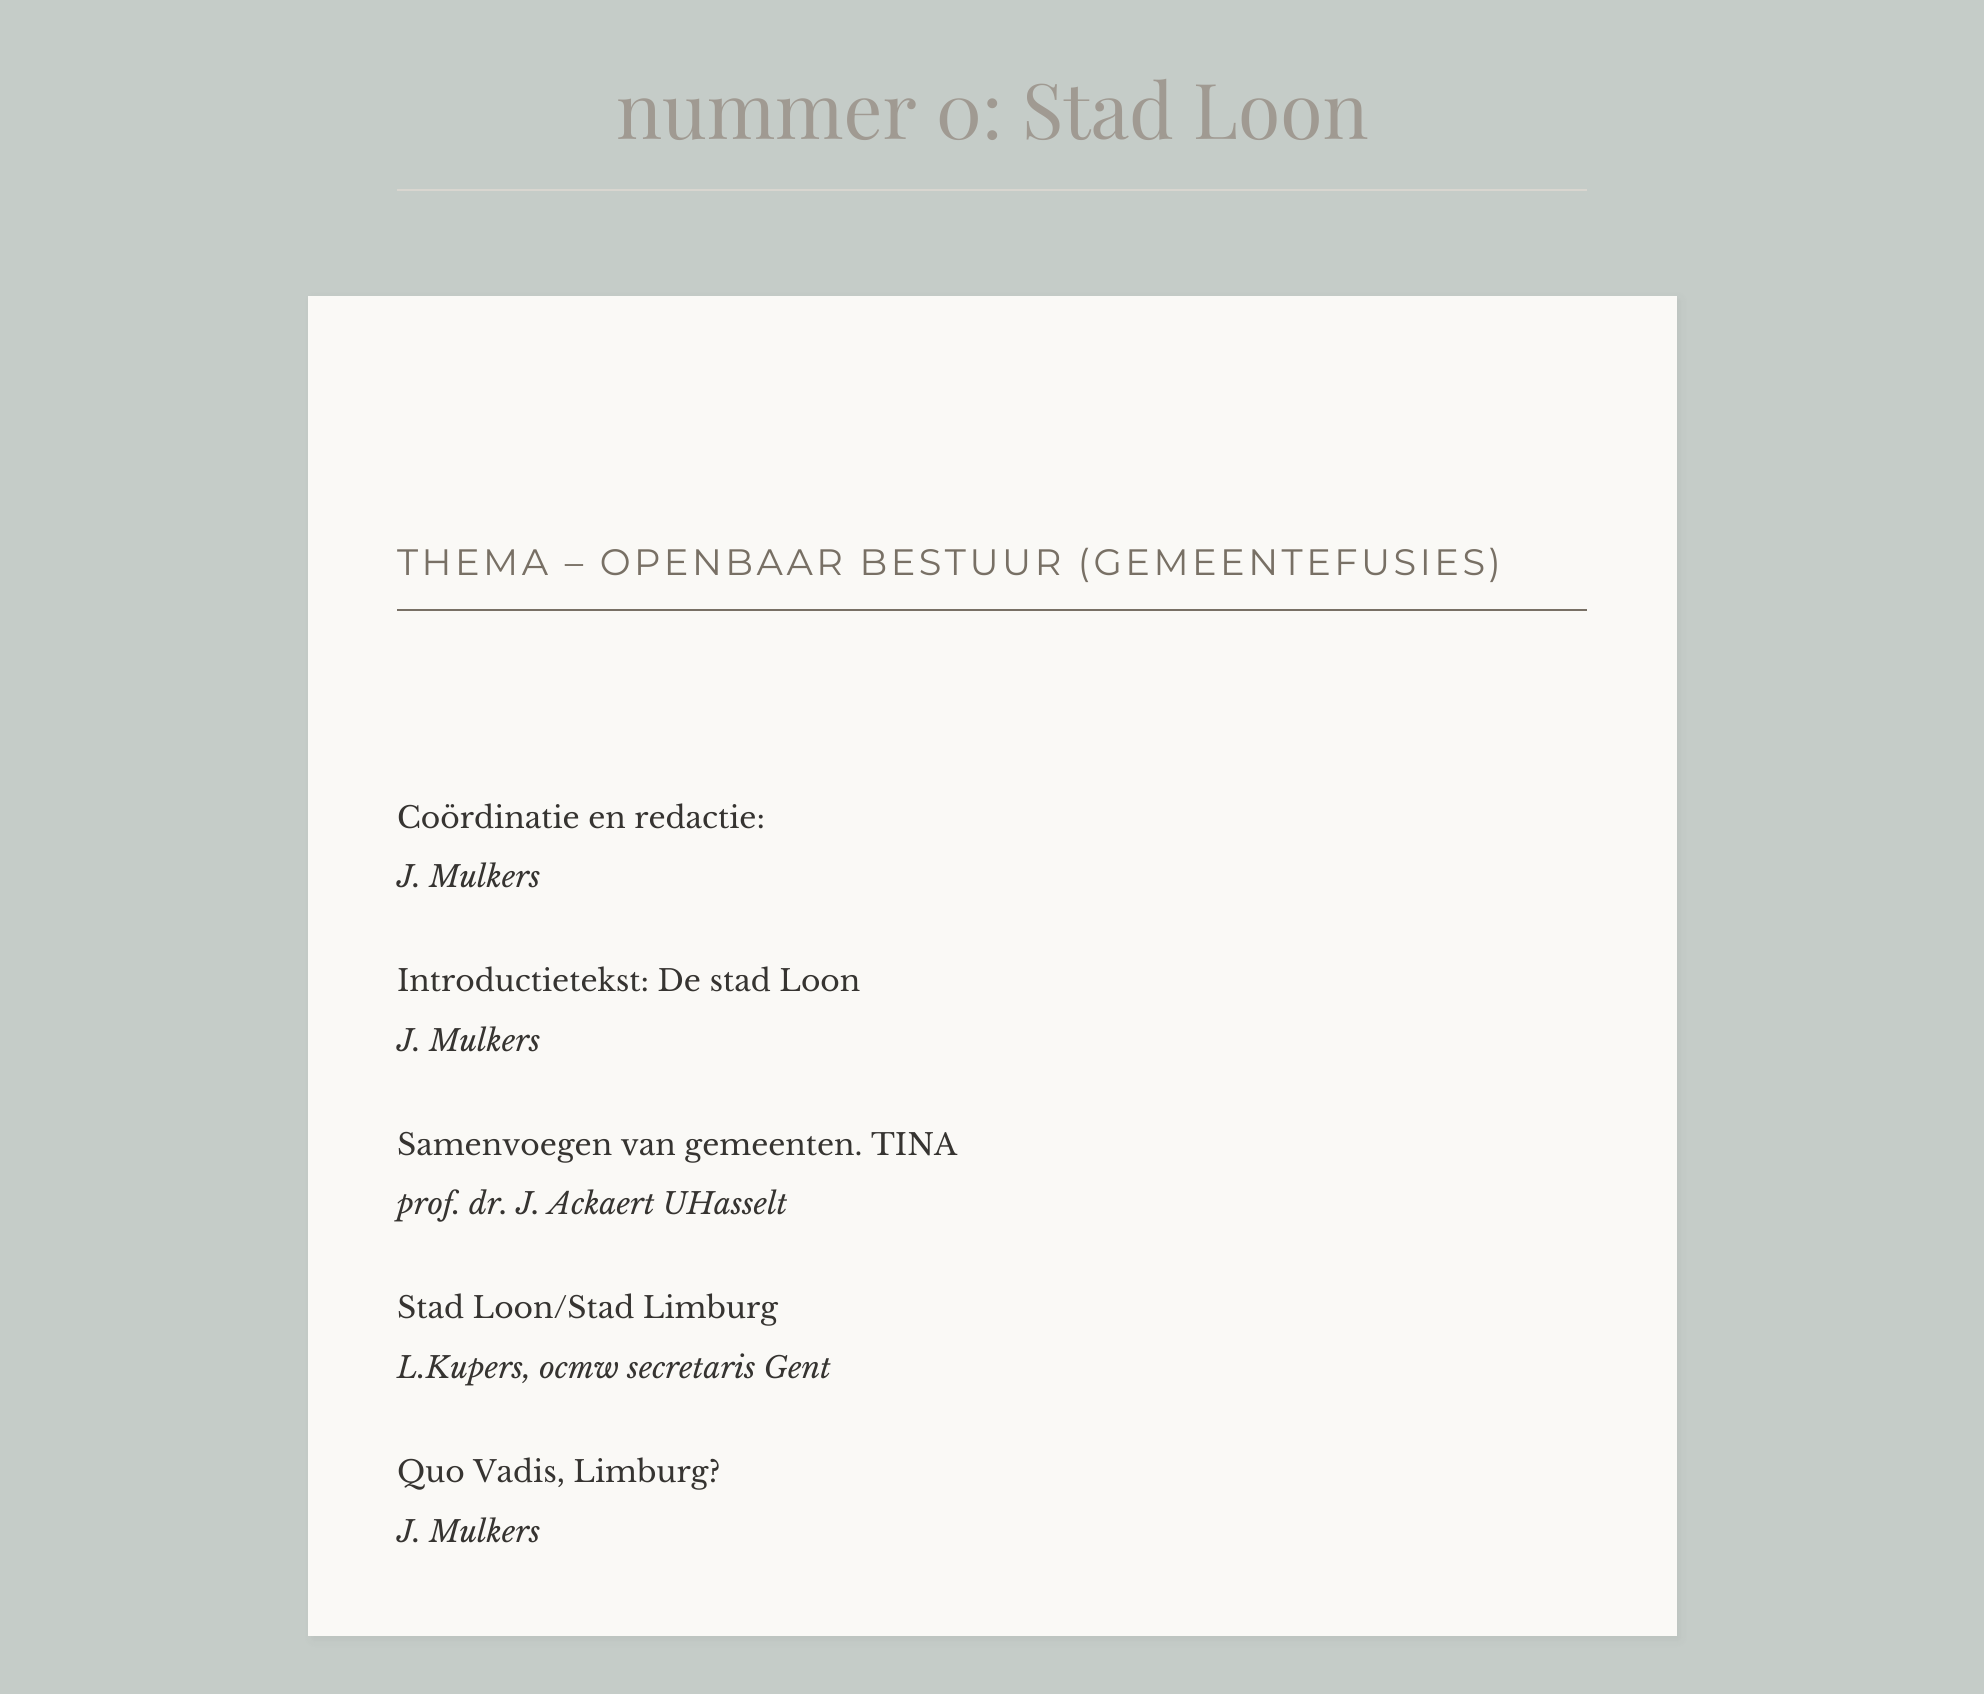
#include <cairo.h>
#include <math.h>
#include <stddef.h>


static void spaced_text(cairo_t *cr, double x, double y, const char *s, double letter, double word) {
    cairo_move_to(cr, x, y);
    while (*s) {
        char ch[5] = {0};
        int n = 0;
        do ch[n++] = *s++; while ((*s & 0xC0) == 0x80);
        cairo_show_text(cr, ch);
        cairo_rel_move_to(cr, letter + word * (*ch == ' '), 0);
    }
}

static void round_rect(cairo_t *cr, double x, double y, double w, double h, double r) {
    cairo_new_sub_path(cr);
    cairo_arc(cr, x + w - r, y + h - r, r, 0, M_PI / 2);
    cairo_arc(cr, x + r, y + h - r, r, M_PI / 2, M_PI);
    cairo_arc(cr, x + r, y + r, r, M_PI, 1.5 * M_PI);
    cairo_arc(cr, x + w - r, y + r, r, 1.5 * M_PI, 2 * M_PI);
    cairo_close_path(cr);
}

static void shadow(cairo_t *cr, double x, double y, double w, double h, double r, double blur, double alpha) {
    cairo_push_group_with_content(cr, CAIRO_CONTENT_ALPHA);
    cairo_set_operator(cr, CAIRO_OPERATOR_SOURCE);
    for (int i = 15; i >= -15 && fmin(w, h) + blur * i / 3 > 0; i -= 2) {
        double e = blur * i / 6;
        cairo_set_source_rgba(cr, 0, 0, 0, alpha * erfc((i - 1) / 8.5) / 2);
        round_rect(cr, x - e, y - e, w + 2 * e, h + 2 * e, fmax(0, fmin(r + e + blur * .6, fmin(w, h) / 2 + e)));
        cairo_fill(cr);
    }
    cairo_pattern_t *soft = cairo_pop_group(cr);
    cairo_mask(cr, soft);
    cairo_pattern_destroy(soft);
}

int main(void) {
    cairo_surface_t *surface = cairo_image_surface_create(CAIRO_FORMAT_RGB24, 1984, 1694);
    cairo_t *cr = cairo_create(surface);
    cairo_font_options_t *options = cairo_font_options_create();
    cairo_font_options_set_hint_metrics(options, CAIRO_HINT_METRICS_OFF);
    cairo_font_options_set_hint_style(options, CAIRO_HINT_STYLE_NONE);
    cairo_set_font_options(cr, options);
    cairo_set_miter_limit(cr, 4);
    cairo_set_source_rgb(cr, 0.773, 0.8, 0.784);
    cairo_paint(cr);
    cairo_set_source_rgb(cr, 0.851, 0.839, 0.816);
    cairo_rectangle(cr, 397, 189, 1190, 2);
    cairo_fill(cr);
    cairo_select_font_face(cr, "Playfair Display", CAIRO_FONT_SLANT_NORMAL, CAIRO_FONT_WEIGHT_NORMAL);
    cairo_set_font_size(cr, 77);
    cairo_set_source_rgb(cr, 0.627, 0.604, 0.573);
    cairo_move_to(cr, 616, 139);
    cairo_show_text(cr, "nummer 0: Stad Loon");
    cairo_set_source_rgb(cr, 0, 0, 0);
    shadow(cr, 312, 299, 1368, 1341, 0, 5, 0.05);
    cairo_set_source_rgb(cr, 0.98, 0.976, 0.961);
    cairo_rectangle(cr, 308, 296, 1369, 1340);
    cairo_fill(cr);
    cairo_set_source_rgb(cr, 0.471, 0.439, 0.396);
    cairo_rectangle(cr, 397, 609, 1190, 2);
    cairo_fill(cr);
    cairo_select_font_face(cr, "Montserrat Thin", CAIRO_FONT_SLANT_NORMAL, CAIRO_FONT_WEIGHT_NORMAL);
    cairo_set_font_size(cr, 36.75);
    spaced_text(cr, 397, 575, "THEMA – OPENBAAR BESTUUR (GEMEENTEFUSIES)", 3.5, 0);
    cairo_select_font_face(cr, "Libre Baskerville", CAIRO_FONT_SLANT_NORMAL, CAIRO_FONT_WEIGHT_NORMAL);
    cairo_set_font_size(cr, 29.75);
    cairo_set_source_rgb(cr, 0.212, 0.204, 0.192);
    cairo_move_to(cr, 397, 828);
    cairo_show_text(cr, "Coördinatie en redactie:");
    cairo_select_font_face(cr, "Libre Baskerville", CAIRO_FONT_SLANT_ITALIC, CAIRO_FONT_WEIGHT_NORMAL);
    cairo_move_to(cr, 397, 887);
    cairo_show_text(cr, "J. Mulkers");
    cairo_select_font_face(cr, "Libre Baskerville", CAIRO_FONT_SLANT_NORMAL, CAIRO_FONT_WEIGHT_NORMAL);
    cairo_move_to(cr, 397, 991);
    cairo_show_text(cr, "Introductietekst: De stad Loon");
    cairo_select_font_face(cr, "Libre Baskerville", CAIRO_FONT_SLANT_ITALIC, CAIRO_FONT_WEIGHT_NORMAL);
    cairo_move_to(cr, 397, 1051);
    cairo_show_text(cr, "J. Mulkers");
    cairo_select_font_face(cr, "Libre Baskerville", CAIRO_FONT_SLANT_NORMAL, CAIRO_FONT_WEIGHT_NORMAL);
    cairo_move_to(cr, 397, 1155);
    cairo_show_text(cr, "Samenvoegen van gemeenten. TINA");
    cairo_select_font_face(cr, "Libre Baskerville", CAIRO_FONT_SLANT_ITALIC, CAIRO_FONT_WEIGHT_NORMAL);
    cairo_move_to(cr, 397, 1214);
    cairo_show_text(cr, "prof. dr. J. Ackaert UHasselt");
    cairo_select_font_face(cr, "Libre Baskerville", CAIRO_FONT_SLANT_NORMAL, CAIRO_FONT_WEIGHT_NORMAL);
    cairo_move_to(cr, 397, 1318);
    cairo_show_text(cr, "Stad Loon/Stad Limburg");
    cairo_select_font_face(cr, "Libre Baskerville", CAIRO_FONT_SLANT_ITALIC, CAIRO_FONT_WEIGHT_NORMAL);
    cairo_move_to(cr, 397, 1378);
    cairo_show_text(cr, "L.Kupers, ocmw secretaris Gent");
    cairo_select_font_face(cr, "Libre Baskerville", CAIRO_FONT_SLANT_NORMAL, CAIRO_FONT_WEIGHT_NORMAL);
    cairo_move_to(cr, 397, 1482);
    cairo_show_text(cr, "Quo Vadis, Limburg?");
    cairo_select_font_face(cr, "Libre Baskerville", CAIRO_FONT_SLANT_ITALIC, CAIRO_FONT_WEIGHT_NORMAL);
    cairo_move_to(cr, 397, 1542);
    cairo_show_text(cr, "J. Mulkers");
    cairo_surface_write_to_png(surface, "page.png");
    cairo_font_options_destroy(options);
    cairo_destroy(cr);
    cairo_surface_destroy(surface);
    return 0;
}
